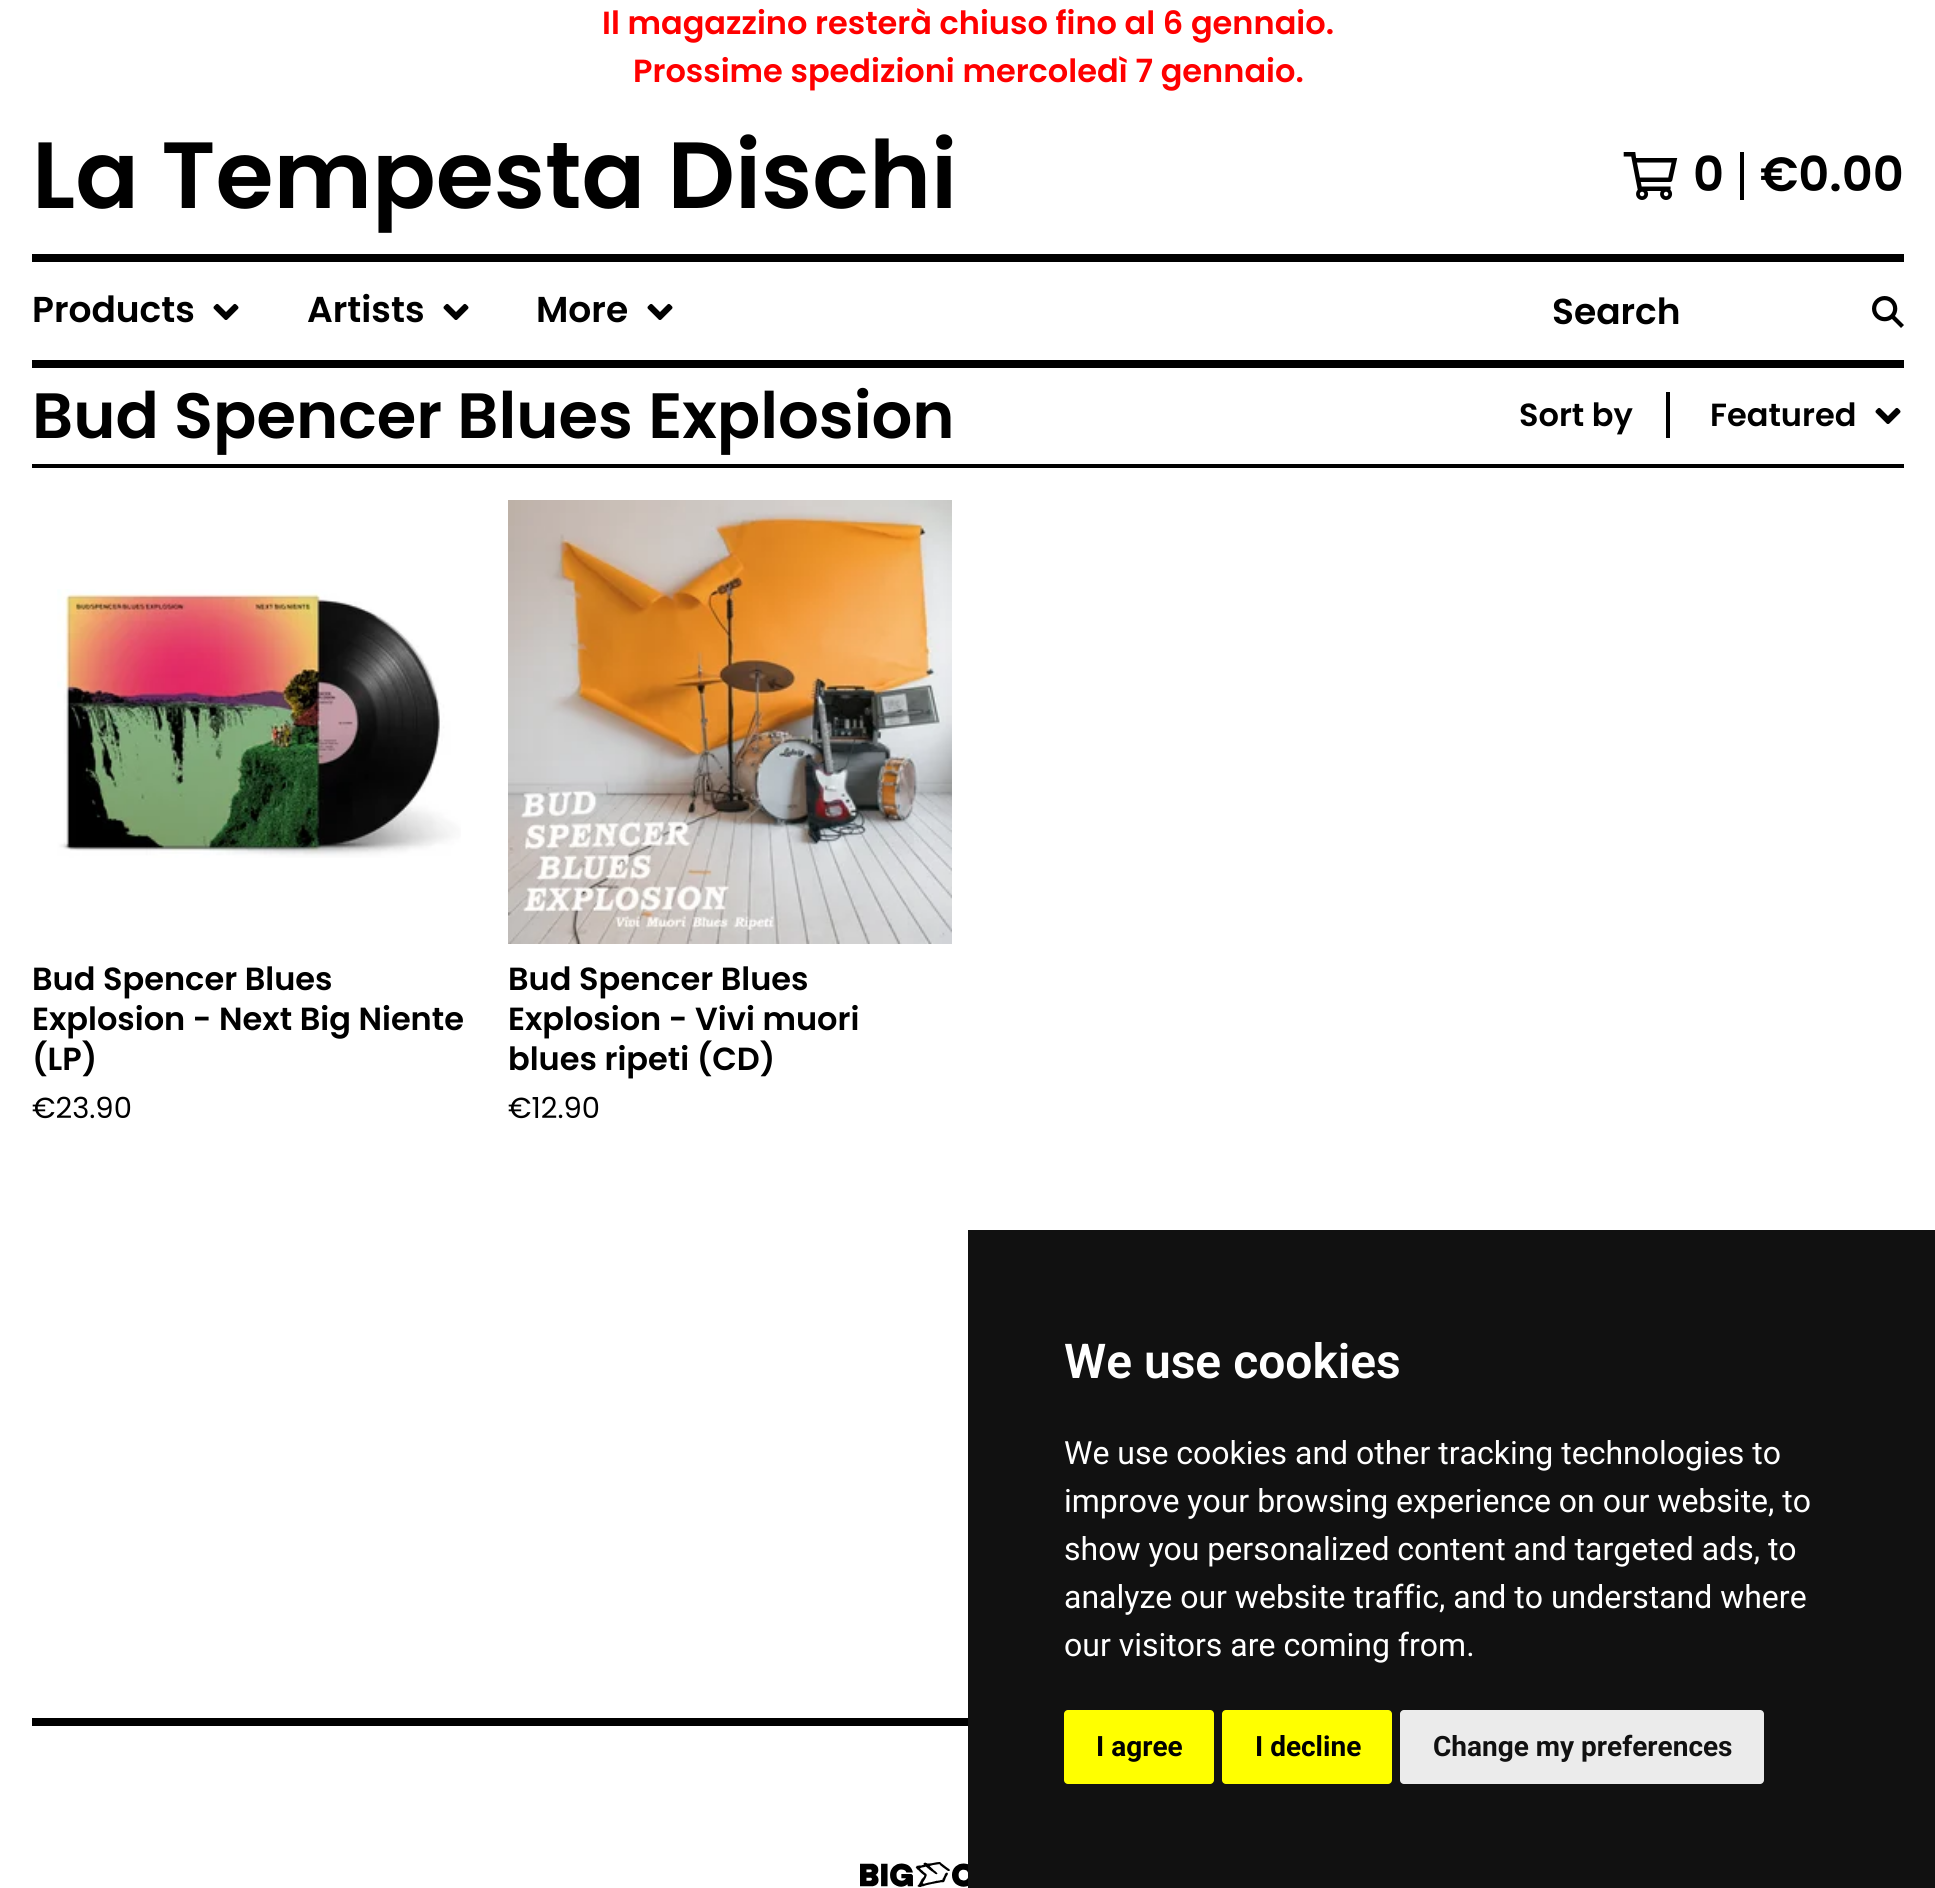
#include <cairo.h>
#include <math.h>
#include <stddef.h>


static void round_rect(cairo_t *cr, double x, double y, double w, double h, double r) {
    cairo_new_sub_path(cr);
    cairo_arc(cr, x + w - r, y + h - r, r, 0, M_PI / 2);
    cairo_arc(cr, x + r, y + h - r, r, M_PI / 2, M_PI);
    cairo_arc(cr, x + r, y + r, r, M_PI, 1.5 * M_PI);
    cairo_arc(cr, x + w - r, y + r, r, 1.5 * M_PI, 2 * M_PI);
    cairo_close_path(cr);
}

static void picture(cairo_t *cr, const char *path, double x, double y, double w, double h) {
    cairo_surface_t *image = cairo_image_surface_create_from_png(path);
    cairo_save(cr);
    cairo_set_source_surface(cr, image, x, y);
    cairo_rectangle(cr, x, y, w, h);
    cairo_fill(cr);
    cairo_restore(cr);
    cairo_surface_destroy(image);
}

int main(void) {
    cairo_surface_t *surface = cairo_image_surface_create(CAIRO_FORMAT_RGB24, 1935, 1888);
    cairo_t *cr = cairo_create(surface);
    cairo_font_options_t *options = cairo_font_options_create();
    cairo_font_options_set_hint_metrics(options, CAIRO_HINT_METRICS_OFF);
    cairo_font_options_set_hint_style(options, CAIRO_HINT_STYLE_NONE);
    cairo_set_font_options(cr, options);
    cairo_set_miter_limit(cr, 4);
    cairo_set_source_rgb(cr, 1, 1, 1);
    cairo_paint(cr);
    cairo_select_font_face(cr, "Poppins SemiBold", CAIRO_FONT_SLANT_NORMAL, CAIRO_FONT_WEIGHT_NORMAL);
    cairo_set_font_size(cr, 32);
    cairo_set_source_rgb(cr, 1, 0, 0);
    cairo_move_to(cr, 602, 34);
    cairo_show_text(cr, "Il magazzino resterà chiuso fino al 6 gennaio.");
    cairo_move_to(cr, 633, 82);
    cairo_show_text(cr, "Prossime spedizioni mercoledì 7 gennaio.");
    cairo_set_source_rgb(cr, 0, 0, 0);
    cairo_rectangle(cr, 32, 254, 1872, 8);
    cairo_fill(cr);
    cairo_set_font_size(cr, 94);
    cairo_move_to(cr, 32, 208);
    cairo_show_text(cr, "La Tempesta Dischi");
    picture(cr, "img1.png", 1623, 152, 55, 48);
    cairo_rectangle(cr, 1740, 152, 4, 48);
    cairo_fill(cr);
    cairo_set_font_size(cr, 48);
    cairo_move_to(cr, 1693, 191);
    cairo_show_text(cr, "0");
    cairo_move_to(cr, 1760, 191);
    cairo_show_text(cr, "€0.00");
    cairo_rectangle(cr, 32, 360, 1872, 8);
    cairo_fill(cr);
    cairo_set_font_size(cr, 36);
    cairo_move_to(cr, 32, 322);
    cairo_show_text(cr, "Products");
    picture(cr, "img2.png", 213, 303, 26, 17);
    cairo_move_to(cr, 307, 322);
    cairo_show_text(cr, "Artists");
    picture(cr, "img2.png", 443, 303, 26, 17);
    cairo_move_to(cr, 536, 322);
    cairo_show_text(cr, "More");
    picture(cr, "img2.png", 647, 303, 26, 17);
    cairo_move_to(cr, 1552, 324);
    cairo_show_text(cr, "Search");
    picture(cr, "img3.png", 1872, 296, 32, 32);
    cairo_rectangle(cr, 32, 464, 1872, 4);
    cairo_fill(cr);
    cairo_set_font_size(cr, 64);
    cairo_move_to(cr, 32, 438);
    cairo_show_text(cr, "Bud Spencer Blues Explosion");
    cairo_set_font_size(cr, 32);
    cairo_move_to(cr, 1519, 426);
    cairo_show_text(cr, "Sort by");
    cairo_rectangle(cr, 1666, 392, 4, 46);
    cairo_fill(cr);
    cairo_move_to(cr, 1710, 426);
    cairo_show_text(cr, "Featured");
    picture(cr, "img2.png", 1875, 407, 26, 17);
    picture(cr, "img4.png", 57, 589, 404, 269);
    cairo_move_to(cr, 32, 990);
    cairo_show_text(cr, "Bud Spencer Blues");
    cairo_move_to(cr, 32, 1030);
    cairo_show_text(cr, "Explosion - Next Big Niente");
    cairo_move_to(cr, 32, 1070);
    cairo_show_text(cr, "(LP)");
    cairo_select_font_face(cr, "Poppins", CAIRO_FONT_SLANT_NORMAL, CAIRO_FONT_WEIGHT_NORMAL);
    cairo_set_font_size(cr, 29);
    cairo_move_to(cr, 32, 1118);
    cairo_show_text(cr, "€23.90");
    picture(cr, "img5.png", 508, 500, 444, 444);
    cairo_select_font_face(cr, "Poppins SemiBold", CAIRO_FONT_SLANT_NORMAL, CAIRO_FONT_WEIGHT_NORMAL);
    cairo_set_font_size(cr, 32);
    cairo_move_to(cr, 508, 990);
    cairo_show_text(cr, "Bud Spencer Blues");
    cairo_move_to(cr, 508, 1030);
    cairo_show_text(cr, "Explosion - Vivi muori");
    cairo_move_to(cr, 508, 1070);
    cairo_show_text(cr, "blues ripeti (CD)");
    cairo_select_font_face(cr, "Poppins", CAIRO_FONT_SLANT_NORMAL, CAIRO_FONT_WEIGHT_NORMAL);
    cairo_set_font_size(cr, 29);
    cairo_move_to(cr, 508, 1118);
    cairo_show_text(cr, "€12.90");
    cairo_rectangle(cr, 32, 1718, 936, 8);
    cairo_fill(cr);
    picture(cr, "img6.png", 860, 1862, 108, 25);
    cairo_set_source_rgb(cr, 0.067, 0.067, 0.067);
    cairo_rectangle(cr, 968, 1230, 967, 658);
    cairo_fill(cr);
    cairo_select_font_face(cr, "Roboto SemiBold", CAIRO_FONT_SLANT_NORMAL, CAIRO_FONT_WEIGHT_NORMAL);
    cairo_set_font_size(cr, 48);
    cairo_set_source_rgb(cr, 1, 1, 1);
    cairo_move_to(cr, 1064, 1378);
    cairo_show_text(cr, "We use cookies");
    cairo_select_font_face(cr, "Roboto", CAIRO_FONT_SLANT_NORMAL, CAIRO_FONT_WEIGHT_NORMAL);
    cairo_set_font_size(cr, 32);
    cairo_move_to(cr, 1064, 1464);
    cairo_show_text(cr, "We use cookies and other tracking technologies to");
    cairo_move_to(cr, 1064, 1512);
    cairo_show_text(cr, "improve your browsing experience on our website, to");
    cairo_move_to(cr, 1064, 1560);
    cairo_show_text(cr, "show you personalized content and targeted ads, to");
    cairo_move_to(cr, 1064, 1608);
    cairo_show_text(cr, "analyze our website traffic, and to understand where");
    cairo_move_to(cr, 1064, 1656);
    cairo_show_text(cr, "our visitors are coming from.");
    cairo_set_source_rgb(cr, 1, 1, 0);
    round_rect(cr, 1064, 1710, 150, 74, 4);
    cairo_fill(cr);
    cairo_select_font_face(cr, "Roboto", CAIRO_FONT_SLANT_NORMAL, CAIRO_FONT_WEIGHT_BOLD);
    cairo_set_font_size(cr, 28);
    cairo_set_source_rgb(cr, 0, 0, 0);
    cairo_move_to(cr, 1096, 1756);
    cairo_show_text(cr, "I agree");
    cairo_set_source_rgb(cr, 1, 1, 0);
    round_rect(cr, 1222, 1710, 170, 74, 4);
    cairo_fill(cr);
    cairo_set_source_rgb(cr, 0, 0, 0);
    cairo_move_to(cr, 1255, 1756);
    cairo_show_text(cr, "I decline");
    cairo_set_source_rgb(cr, 0.918, 0.918, 0.918);
    round_rect(cr, 1400, 1710, 364, 74, 4);
    cairo_fill(cr);
    cairo_set_source_rgb(cr, 0.067, 0.067, 0.067);
    cairo_move_to(cr, 1433, 1756);
    cairo_show_text(cr, "Change my preferences");
    cairo_surface_write_to_png(surface, "page.png");
    cairo_font_options_destroy(options);
    cairo_destroy(cr);
    cairo_surface_destroy(surface);
    return 0;
}
